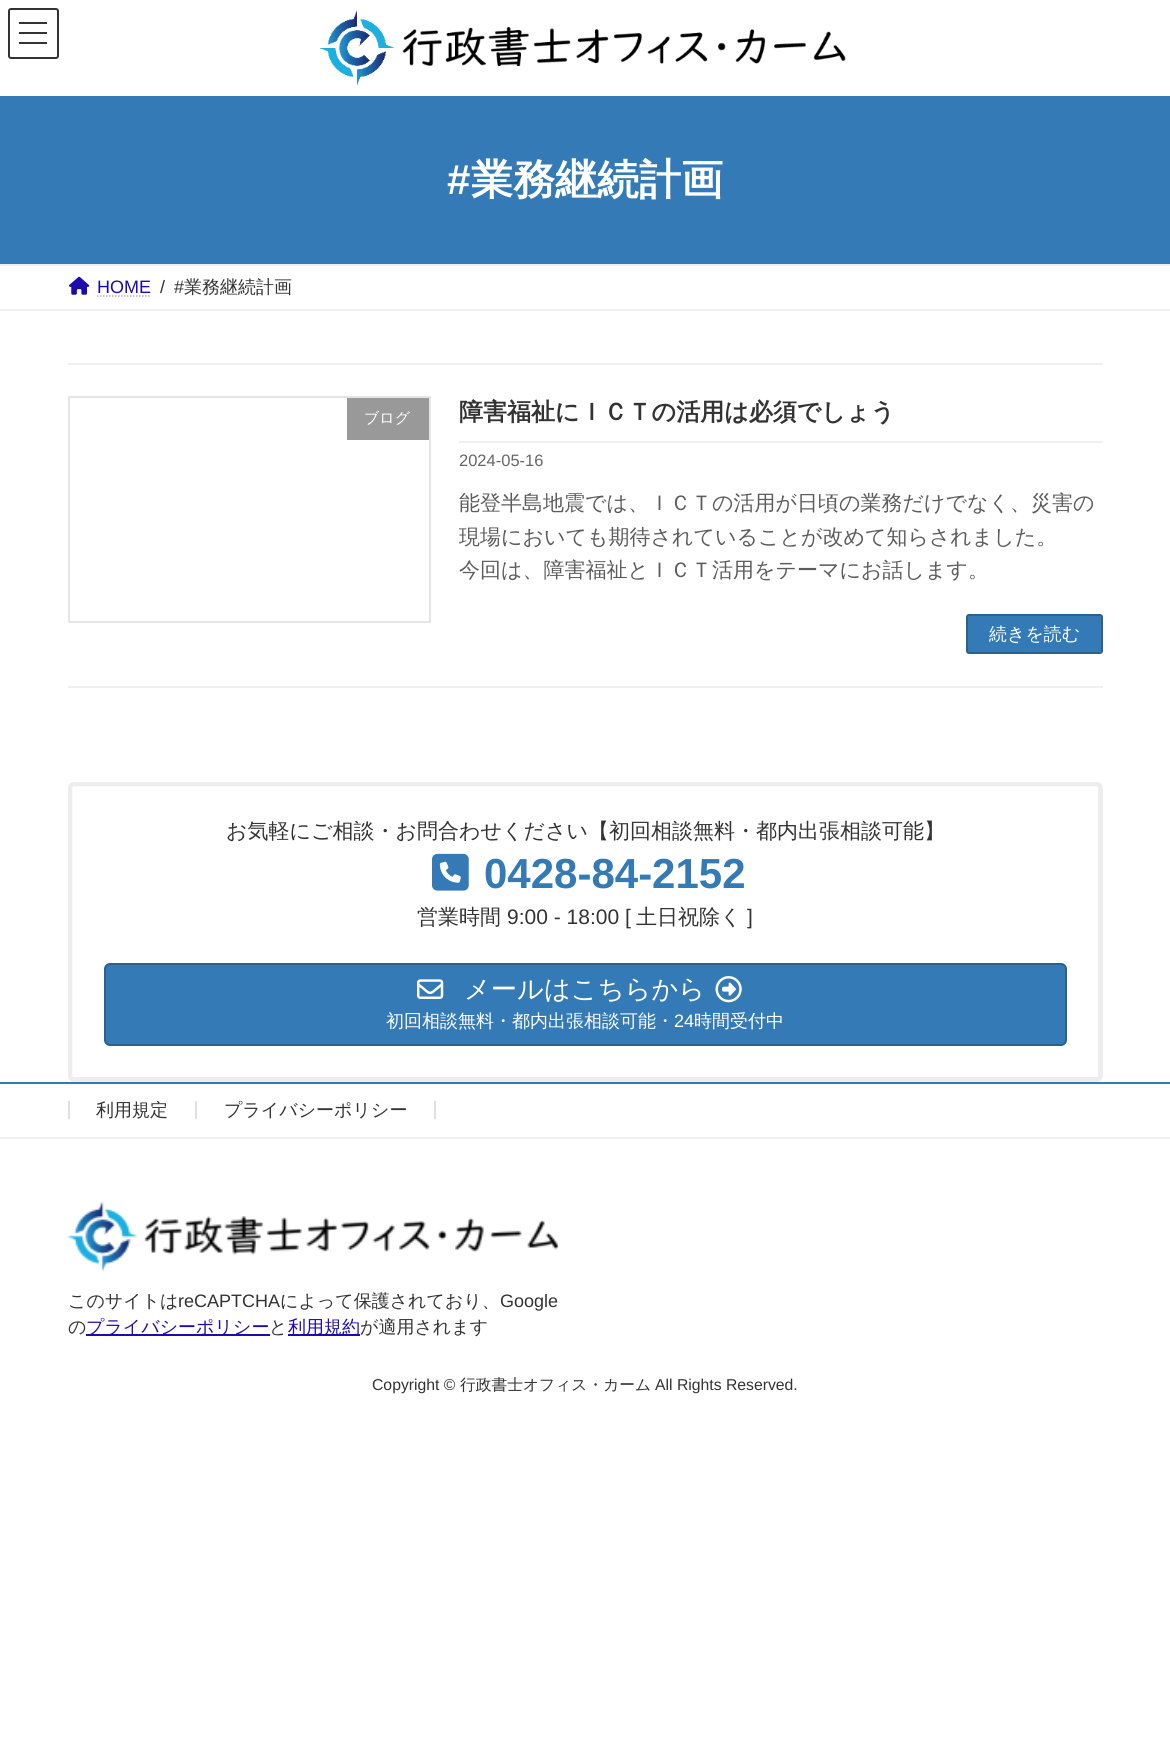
#include <cairo.h>
#include <math.h>
#include <stddef.h>


static void round_rect(cairo_t *cr, double x, double y, double w, double h, double r) {
    cairo_new_sub_path(cr);
    cairo_arc(cr, x + w - r, y + h - r, r, 0, M_PI / 2);
    cairo_arc(cr, x + r, y + h - r, r, M_PI / 2, M_PI);
    cairo_arc(cr, x + r, y + r, r, M_PI, 1.5 * M_PI);
    cairo_arc(cr, x + w - r, y + r, r, 1.5 * M_PI, 2 * M_PI);
    cairo_close_path(cr);
}

static void picture(cairo_t *cr, const char *path, double x, double y, double w, double h) {
    cairo_surface_t *image = cairo_image_surface_create_from_png(path);
    cairo_save(cr);
    cairo_set_source_surface(cr, image, x, y);
    cairo_rectangle(cr, x, y, w, h);
    cairo_fill(cr);
    cairo_restore(cr);
    cairo_surface_destroy(image);
}

int main(void) {
    cairo_surface_t *surface = cairo_image_surface_create(CAIRO_FORMAT_RGB24, 1170, 1747);
    cairo_t *cr = cairo_create(surface);
    cairo_font_options_t *options = cairo_font_options_create();
    cairo_font_options_set_hint_metrics(options, CAIRO_HINT_METRICS_OFF);
    cairo_font_options_set_hint_style(options, CAIRO_HINT_STYLE_NONE);
    cairo_set_font_options(cr, options);
    cairo_set_miter_limit(cr, 4);
    cairo_set_source_rgb(cr, 1, 1, 1);
    cairo_paint(cr);
    cairo_set_source_rgb(cr, 0.2, 0.2, 0.2);
    cairo_rectangle(cr, 19, 22, 28, 2);
    cairo_fill(cr);
    cairo_rectangle(cr, 19, 32, 28, 2);
    cairo_fill(cr);
    cairo_rectangle(cr, 19, 42, 28, 2);
    cairo_fill(cr);
    round_rect(cr, 9, 9, 49, 49, 2);
    cairo_stroke(cr);
    picture(cr, "img1.png", 320, 11, 526, 74);
    cairo_set_source_rgb(cr, 0.2, 0.478, 0.718);
    cairo_rectangle(cr, 0, 96, 1170, 168);
    cairo_fill(cr);
    cairo_select_font_face(cr, "Liberation Sans", CAIRO_FONT_SLANT_NORMAL, CAIRO_FONT_WEIGHT_BOLD);
    cairo_set_font_size(cr, 42);
    cairo_set_source_rgb(cr, 1, 1, 1);
    cairo_move_to(cr, 447, 194);
    cairo_show_text(cr, "#");
    cairo_select_font_face(cr, "WenQuanYi Zen Hei", CAIRO_FONT_SLANT_NORMAL, CAIRO_FONT_WEIGHT_BOLD);
    cairo_move_to(cr, 471, 194);
    cairo_show_text(cr, "業務継続計画");
    cairo_set_source_rgb(cr, 0.941, 0.941, 0.941);
    cairo_rectangle(cr, 0, 264, 1170, 2);
    cairo_fill(cr);
    cairo_rectangle(cr, 0, 309, 1170, 2);
    cairo_fill(cr);
    picture(cr, "img2.png", 69, 276, 21, 19);
    cairo_select_font_face(cr, "Liberation Sans", CAIRO_FONT_SLANT_NORMAL, CAIRO_FONT_WEIGHT_NORMAL);
    cairo_set_font_size(cr, 18);
    cairo_set_source_rgb(cr, 0.102, 0.051, 0.671);
    cairo_move_to(cr, 97, 293);
    cairo_show_text(cr, "HOME");
    cairo_new_path(cr);
    cairo_move_to(cr, 97, 296);
    cairo_line_to(cr, 151, 296);
    cairo_set_source_rgb(cr, 0.702, 0.702, 0.702);
    cairo_set_line_width(cr, 1.5);
    cairo_set_dash(cr, (double[]){1.5, 1.5}, 2, 0);
    cairo_stroke(cr);
    cairo_set_source_rgb(cr, 0.2, 0.2, 0.2);
    cairo_move_to(cr, 160, 293);
    cairo_show_text(cr, "/");
    cairo_move_to(cr, 174, 293);
    cairo_show_text(cr, "#");
    cairo_select_font_face(cr, "WenQuanYi Zen Hei Medium", CAIRO_FONT_SLANT_NORMAL, CAIRO_FONT_WEIGHT_NORMAL);
    cairo_move_to(cr, 184, 293);
    cairo_show_text(cr, "業務継続計画");
    cairo_set_source_rgb(cr, 0.941, 0.941, 0.941);
    cairo_rectangle(cr, 68, 363, 1035, 2);
    cairo_fill(cr);
    cairo_rectangle(cr, 68, 686, 1035, 2);
    cairo_fill(cr);
    cairo_rectangle(cr, 69, 397, 361, 225);
    cairo_set_source_rgb(cr, 0.898, 0.898, 0.898);
    cairo_set_line_width(cr, 2);
    cairo_set_dash(cr, NULL, 0, 0);
    cairo_stroke(cr);
    cairo_set_source_rgb(cr, 0.6, 0.6, 0.6);
    cairo_rectangle(cr, 347, 398, 82, 42);
    cairo_fill(cr);
    cairo_set_font_size(cr, 15);
    cairo_set_source_rgb(cr, 1, 1, 1);
    cairo_move_to(cr, 364, 423);
    cairo_show_text(cr, "ブログ");
    cairo_set_source_rgb(cr, 0.941, 0.941, 0.941);
    cairo_rectangle(cr, 459, 441, 644, 2);
    cairo_fill(cr);
    cairo_select_font_face(cr, "WenQuanYi Zen Hei", CAIRO_FONT_SLANT_NORMAL, CAIRO_FONT_WEIGHT_BOLD);
    cairo_set_font_size(cr, 24);
    cairo_set_source_rgb(cr, 0.2, 0.2, 0.2);
    cairo_move_to(cr, 459, 420);
    cairo_show_text(cr, "障害福祉にＩＣＴの活用は必須でしょう");
    cairo_select_font_face(cr, "Liberation Sans", CAIRO_FONT_SLANT_NORMAL, CAIRO_FONT_WEIGHT_NORMAL);
    cairo_set_font_size(cr, 16.5);
    cairo_set_source_rgb(cr, 0.4, 0.4, 0.4);
    cairo_move_to(cr, 459, 466);
    cairo_show_text(cr, "2024-05-16");
    cairo_select_font_face(cr, "WenQuanYi Zen Hei Medium", CAIRO_FONT_SLANT_NORMAL, CAIRO_FONT_WEIGHT_NORMAL);
    cairo_set_font_size(cr, 21);
    cairo_set_source_rgb(cr, 0.361, 0.361, 0.361);
    cairo_move_to(cr, 459, 510);
    cairo_show_text(cr, "能登半島地震では、ＩＣＴの活用が日頃の業務だけでなく、災害の");
    cairo_move_to(cr, 459, 544);
    cairo_show_text(cr, "現場においても期待されていることが改めて知らされました。");
    cairo_move_to(cr, 459, 577);
    cairo_show_text(cr, "今回は、障害福祉とＩＣＴ活用をテーマにお話します。");
    cairo_set_source_rgb(cr, 0.2, 0.478, 0.718);
    round_rect(cr, 967, 615, 135, 38, 2);
    cairo_fill_preserve(cr);
    cairo_set_source_rgb(cr, 0.161, 0.384, 0.573);
    cairo_stroke(cr);
    cairo_set_font_size(cr, 18);
    cairo_set_source_rgb(cr, 1, 1, 1);
    cairo_move_to(cr, 989, 640);
    cairo_show_text(cr, "続きを読む");
    round_rect(cr, 70.5, 784.5, 1030, 295, 3.5);
    cairo_set_source_rgb(cr, 0.929, 0.929, 0.929);
    cairo_set_line_width(cr, 5);
    cairo_stroke(cr);
    cairo_set_source_rgba(cr, 1, 1, 1, 0.8);
    cairo_set_fill_rule(cr, CAIRO_FILL_RULE_EVEN_ODD);
    cairo_new_path(cr);
    cairo_move_to(cr, 74, 786);
    cairo_curve_to(cr, 73, 786, 72, 787, 72, 788);
    cairo_line_to(cr, 72, 1076);
    cairo_curve_to(cr, 72, 1076, 73, 1077, 74, 1077);
    cairo_line_to(cr, 1096, 1077);
    cairo_curve_to(cr, 1097, 1077, 1098, 1076, 1098, 1076);
    cairo_line_to(cr, 1098, 788);
    cairo_curve_to(cr, 1098, 787, 1097, 786, 1096, 786);
    cairo_close_path(cr);
    cairo_move_to(cr, 74, 788);
    cairo_line_to(cr, 74, 1075);
    cairo_line_to(cr, 1096, 1075);
    cairo_line_to(cr, 1096, 788);
    cairo_close_path(cr);
    cairo_fill(cr);
    cairo_set_font_size(cr, 21);
    cairo_set_source_rgb(cr, 0.2, 0.2, 0.2);
    cairo_move_to(cr, 226, 838);
    cairo_show_text(cr, "お気軽にご相談・お問合わせください【初回相談無料・都内出張相談可能】");
    picture(cr, "img3.png", 432, 853, 37, 38);
    cairo_select_font_face(cr, "Liberation Sans", CAIRO_FONT_SLANT_NORMAL, CAIRO_FONT_WEIGHT_BOLD);
    cairo_set_font_size(cr, 42);
    cairo_set_source_rgb(cr, 0.2, 0.478, 0.718);
    cairo_move_to(cr, 484, 888);
    cairo_show_text(cr, "0428-84-2152");
    cairo_select_font_face(cr, "WenQuanYi Zen Hei Medium", CAIRO_FONT_SLANT_NORMAL, CAIRO_FONT_WEIGHT_NORMAL);
    cairo_set_font_size(cr, 21);
    cairo_set_source_rgb(cr, 0.2, 0.2, 0.2);
    cairo_move_to(cr, 417, 924);
    cairo_show_text(cr, "営業時間");
    cairo_select_font_face(cr, "Liberation Sans", CAIRO_FONT_SLANT_NORMAL, CAIRO_FONT_WEIGHT_NORMAL);
    cairo_move_to(cr, 507, 924);
    cairo_show_text(cr, "9:00 - 18:00 [");
    cairo_select_font_face(cr, "WenQuanYi Zen Hei Medium", CAIRO_FONT_SLANT_NORMAL, CAIRO_FONT_WEIGHT_NORMAL);
    cairo_move_to(cr, 636, 924);
    cairo_show_text(cr, "土日祝除く");
    cairo_select_font_face(cr, "Liberation Sans", CAIRO_FONT_SLANT_NORMAL, CAIRO_FONT_WEIGHT_NORMAL);
    cairo_move_to(cr, 747, 924);
    cairo_show_text(cr, "]");
    cairo_set_source_rgb(cr, 0.2, 0.478, 0.718);
    round_rect(cr, 105, 964, 961, 81, 5);
    cairo_fill_preserve(cr);
    cairo_set_source_rgb(cr, 0.161, 0.384, 0.573);
    cairo_set_line_width(cr, 2);
    cairo_stroke(cr);
    picture(cr, "img4.png", 417, 979, 27, 20);
    cairo_select_font_face(cr, "WenQuanYi Zen Hei Medium", CAIRO_FONT_SLANT_NORMAL, CAIRO_FONT_WEIGHT_NORMAL);
    cairo_set_font_size(cr, 26.25);
    cairo_set_source_rgb(cr, 1, 1, 1);
    cairo_move_to(cr, 464, 998);
    cairo_show_text(cr, "メールはこちらから");
    picture(cr, "img5.png", 715, 976, 27, 27);
    cairo_set_font_size(cr, 18);
    cairo_move_to(cr, 386, 1027);
    cairo_show_text(cr, "初回相談無料・都内出張相談可能・");
    cairo_select_font_face(cr, "Liberation Sans", CAIRO_FONT_SLANT_NORMAL, CAIRO_FONT_WEIGHT_NORMAL);
    cairo_move_to(cr, 674, 1027);
    cairo_show_text(cr, "24");
    cairo_select_font_face(cr, "WenQuanYi Zen Hei Medium", CAIRO_FONT_SLANT_NORMAL, CAIRO_FONT_WEIGHT_NORMAL);
    cairo_move_to(cr, 694, 1027);
    cairo_show_text(cr, "時間受付中");
    cairo_set_source_rgb(cr, 0.2, 0.478, 0.718);
    cairo_rectangle(cr, 0, 1082, 1170, 2);
    cairo_fill(cr);
    cairo_set_source_rgb(cr, 0.941, 0.941, 0.941);
    cairo_rectangle(cr, 0, 1137, 1170, 2);
    cairo_fill(cr);
    cairo_set_source_rgb(cr, 0.878, 0.878, 0.878);
    cairo_rectangle(cr, 195, 1101, 2, 18);
    cairo_fill(cr);
    cairo_rectangle(cr, 68, 1101, 2, 18);
    cairo_fill(cr);
    cairo_set_source_rgb(cr, 0.2, 0.2, 0.2);
    cairo_move_to(cr, 96, 1116);
    cairo_show_text(cr, "利用規定");
    cairo_set_source_rgb(cr, 0.878, 0.878, 0.878);
    cairo_rectangle(cr, 434, 1101, 2, 18);
    cairo_fill(cr);
    cairo_set_source_rgb(cr, 0.2, 0.2, 0.2);
    cairo_move_to(cr, 224, 1116);
    cairo_show_text(cr, "プライバシーポリシー");
    picture(cr, "img6.png", 67, 1201, 493, 70);
    cairo_move_to(cr, 68, 1307);
    cairo_show_text(cr, "このサイトは");
    cairo_select_font_face(cr, "Liberation Sans", CAIRO_FONT_SLANT_NORMAL, CAIRO_FONT_WEIGHT_NORMAL);
    cairo_move_to(cr, 178, 1307);
    cairo_show_text(cr, "reCAPTCHA");
    cairo_select_font_face(cr, "WenQuanYi Zen Hei Medium", CAIRO_FONT_SLANT_NORMAL, CAIRO_FONT_WEIGHT_NORMAL);
    cairo_move_to(cr, 280, 1307);
    cairo_show_text(cr, "によって保護されており、");
    cairo_select_font_face(cr, "Liberation Sans", CAIRO_FONT_SLANT_NORMAL, CAIRO_FONT_WEIGHT_NORMAL);
    cairo_move_to(cr, 500, 1307);
    cairo_show_text(cr, "Google");
    cairo_select_font_face(cr, "WenQuanYi Zen Hei Medium", CAIRO_FONT_SLANT_NORMAL, CAIRO_FONT_WEIGHT_NORMAL);
    cairo_move_to(cr, 68, 1333);
    cairo_show_text(cr, "の");
    cairo_set_source_rgb(cr, 0.102, 0.051, 0.671);
    cairo_rectangle(cr, 86, 1334, 184, 2);
    cairo_fill(cr);
    cairo_move_to(cr, 86, 1333);
    cairo_show_text(cr, "プライバシーポリシー");
    cairo_set_source_rgb(cr, 0.2, 0.2, 0.2);
    cairo_move_to(cr, 269, 1333);
    cairo_show_text(cr, "と");
    cairo_set_source_rgb(cr, 0.102, 0.051, 0.671);
    cairo_rectangle(cr, 288, 1334, 72, 2);
    cairo_fill(cr);
    cairo_move_to(cr, 288, 1333);
    cairo_show_text(cr, "利用規約");
    cairo_set_source_rgb(cr, 0.2, 0.2, 0.2);
    cairo_move_to(cr, 360, 1333);
    cairo_show_text(cr, "が適用されます");
    cairo_select_font_face(cr, "Liberation Sans", CAIRO_FONT_SLANT_NORMAL, CAIRO_FONT_WEIGHT_NORMAL);
    cairo_set_font_size(cr, 15.75);
    cairo_move_to(cr, 372, 1390);
    cairo_show_text(cr, "Copyright ©");
    cairo_select_font_face(cr, "WenQuanYi Zen Hei Medium", CAIRO_FONT_SLANT_NORMAL, CAIRO_FONT_WEIGHT_NORMAL);
    cairo_move_to(cr, 460, 1390);
    cairo_show_text(cr, "行政書士オフィス・カーム");
    cairo_select_font_face(cr, "Liberation Sans", CAIRO_FONT_SLANT_NORMAL, CAIRO_FONT_WEIGHT_NORMAL);
    cairo_move_to(cr, 655, 1390);
    cairo_show_text(cr, "All Rights Reserved.");
    cairo_surface_write_to_png(surface, "page.png");
    cairo_font_options_destroy(options);
    cairo_destroy(cr);
    cairo_surface_destroy(surface);
    return 0;
}
